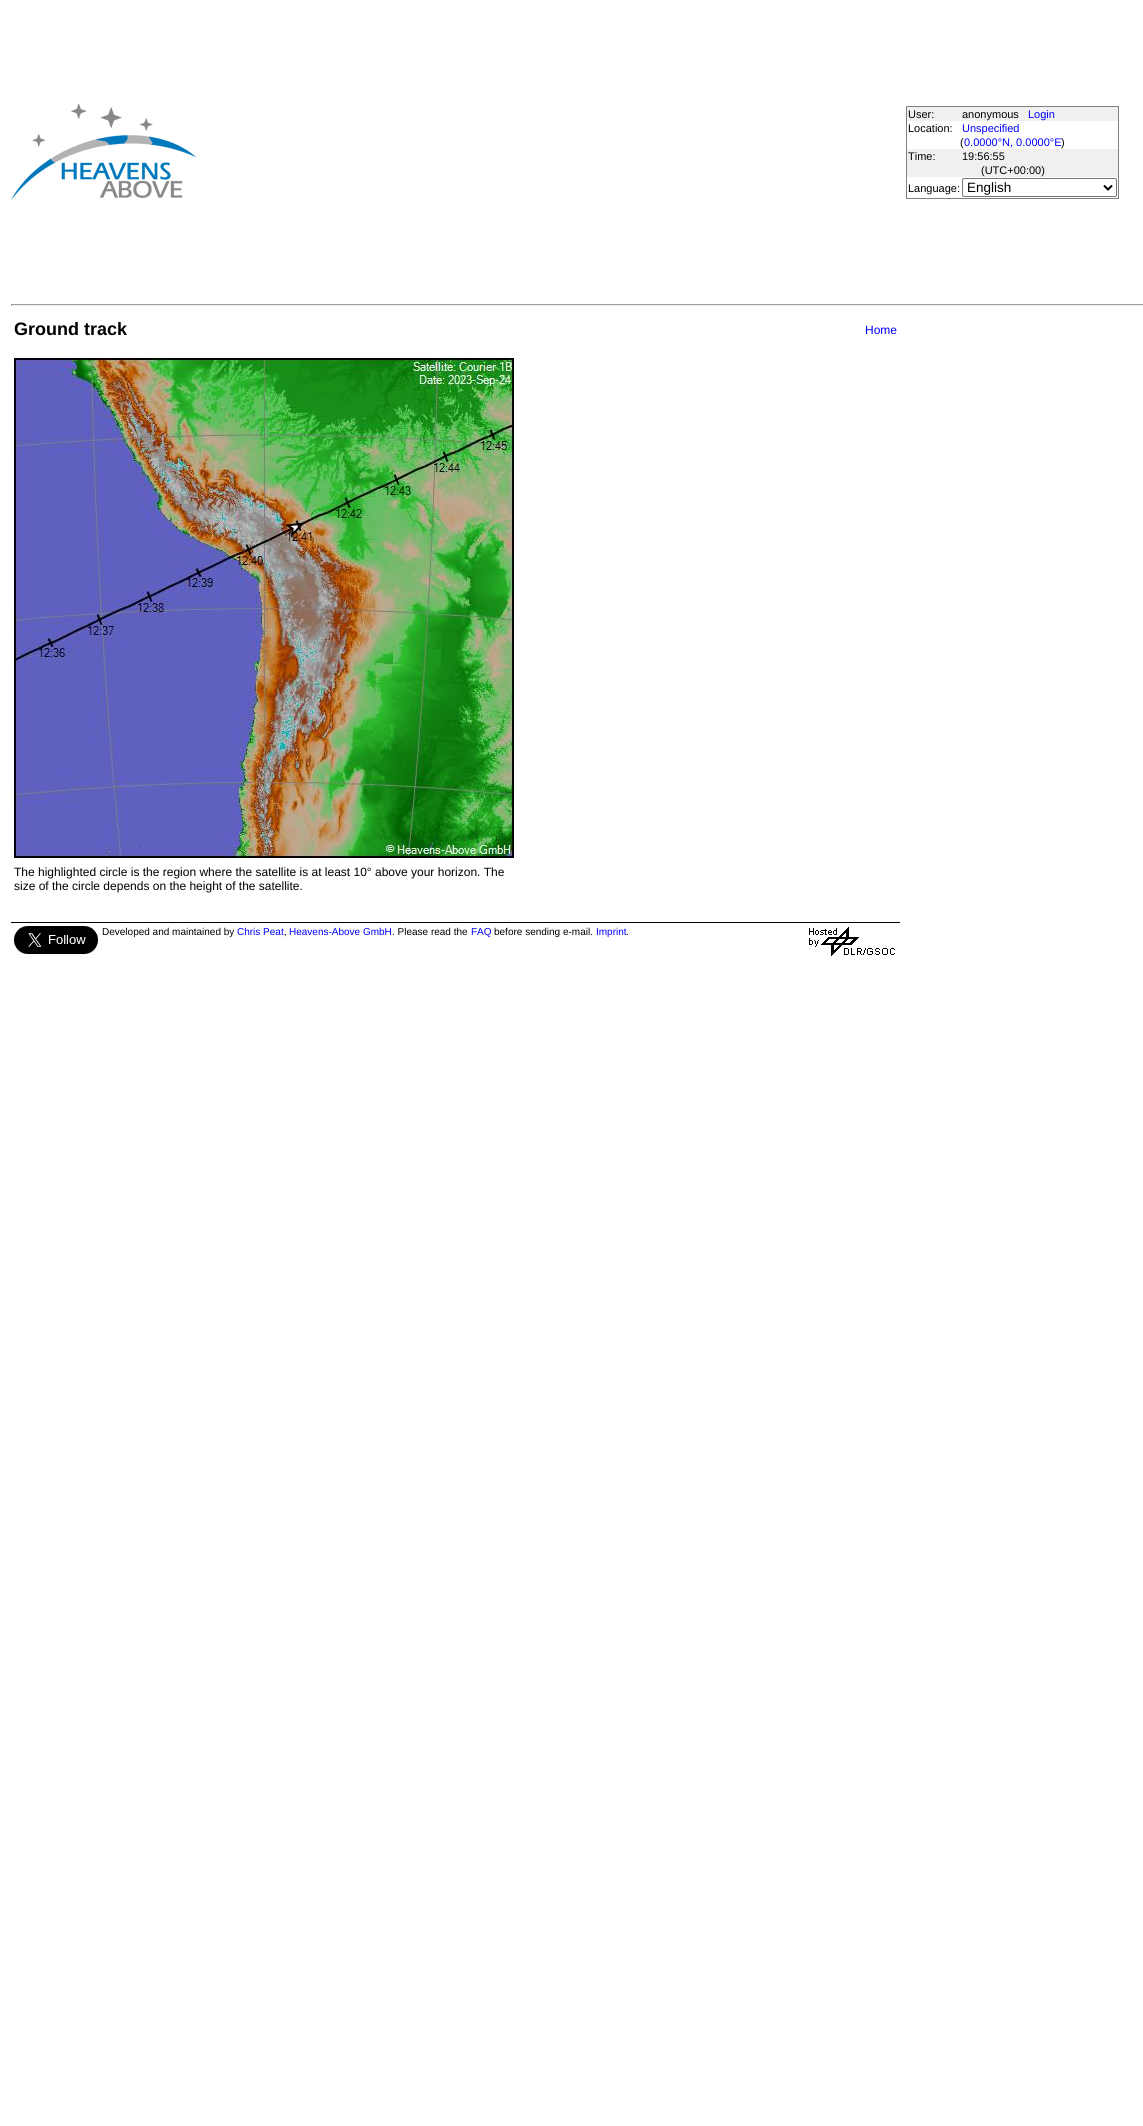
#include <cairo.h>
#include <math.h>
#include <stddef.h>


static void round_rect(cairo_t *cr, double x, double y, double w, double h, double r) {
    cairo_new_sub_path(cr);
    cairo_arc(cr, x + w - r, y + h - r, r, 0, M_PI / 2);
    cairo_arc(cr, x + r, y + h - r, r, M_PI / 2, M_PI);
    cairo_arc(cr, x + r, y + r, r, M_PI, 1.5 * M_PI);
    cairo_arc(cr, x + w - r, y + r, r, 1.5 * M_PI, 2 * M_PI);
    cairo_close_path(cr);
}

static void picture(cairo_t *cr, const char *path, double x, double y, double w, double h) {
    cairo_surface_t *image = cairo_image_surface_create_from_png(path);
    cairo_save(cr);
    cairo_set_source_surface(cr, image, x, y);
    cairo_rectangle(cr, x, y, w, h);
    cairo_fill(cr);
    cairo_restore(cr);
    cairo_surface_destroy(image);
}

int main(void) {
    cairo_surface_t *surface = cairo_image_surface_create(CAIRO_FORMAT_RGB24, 1143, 2126);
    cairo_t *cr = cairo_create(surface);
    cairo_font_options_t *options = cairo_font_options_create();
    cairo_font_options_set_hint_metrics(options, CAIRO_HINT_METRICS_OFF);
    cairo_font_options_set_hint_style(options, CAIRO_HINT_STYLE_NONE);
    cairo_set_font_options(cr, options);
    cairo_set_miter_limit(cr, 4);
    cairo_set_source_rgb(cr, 1, 1, 1);
    cairo_paint(cr);
    picture(cr, "img1.png", 11, 103, 185, 97);
    cairo_set_source_rgb(cr, 0.941, 0.941, 0.941);
    cairo_rectangle(cr, 907, 107, 211, 70);
    cairo_fill(cr);
    cairo_set_source_rgb(cr, 0.502, 0.502, 0.502);
    cairo_rectangle(cr, 906, 106, 213, 1);
    cairo_fill(cr);
    cairo_rectangle(cr, 1118, 106, 1, 93);
    cairo_fill(cr);
    cairo_rectangle(cr, 906, 198, 213, 1);
    cairo_fill(cr);
    cairo_rectangle(cr, 906, 106, 1, 93);
    cairo_fill(cr);
    cairo_select_font_face(cr, "Liberation Sans", CAIRO_FONT_SLANT_NORMAL, CAIRO_FONT_WEIGHT_NORMAL);
    cairo_set_font_size(cr, 11);
    cairo_set_source_rgb(cr, 0, 0, 0);
    cairo_move_to(cr, 908, 118);
    cairo_show_text(cr, "User:");
    cairo_move_to(cr, 962, 118);
    cairo_show_text(cr, "anonymous");
    cairo_set_source_rgb(cr, 0, 0, 1);
    cairo_move_to(cr, 1028, 118);
    cairo_show_text(cr, "Login");
    cairo_set_source_rgb(cr, 1, 1, 1);
    cairo_rectangle(cr, 907, 121, 211, 28);
    cairo_fill(cr);
    cairo_set_source_rgb(cr, 0, 0, 0);
    cairo_move_to(cr, 908, 132);
    cairo_show_text(cr, "Location:");
    cairo_set_source_rgb(cr, 0, 0, 1);
    cairo_move_to(cr, 962, 132);
    cairo_show_text(cr, "Unspecified");
    cairo_set_source_rgb(cr, 0, 0, 0);
    cairo_move_to(cr, 960, 146);
    cairo_show_text(cr, "(");
    cairo_set_source_rgb(cr, 0, 0, 1);
    cairo_move_to(cr, 964, 146);
    cairo_show_text(cr, "0.0000°N, 0.0000°E");
    cairo_set_source_rgb(cr, 0, 0, 0);
    cairo_move_to(cr, 1061, 146);
    cairo_show_text(cr, ")");
    cairo_move_to(cr, 908, 160);
    cairo_show_text(cr, "Time:");
    cairo_move_to(cr, 962, 160);
    cairo_show_text(cr, "19:56:55");
    cairo_move_to(cr, 981, 174);
    cairo_show_text(cr, "(UTC+00:00)");
    cairo_move_to(cr, 908, 192);
    cairo_show_text(cr, "Language:");
    round_rect(cr, 962.5, 178.5, 154, 18, 1.5);
    cairo_set_source_rgb(cr, 0.463, 0.463, 0.463);
    cairo_set_line_width(cr, 1);
    cairo_stroke(cr);
    cairo_new_path(cr);
    cairo_move_to(cr, 1104, 185.5);
    cairo_line_to(cr, 1108, 189.5);
    cairo_line_to(cr, 1112, 185.5);
    cairo_set_source_rgb(cr, 0, 0, 0);
    cairo_set_line_width(cr, 2);
    cairo_stroke(cr);
    cairo_set_font_size(cr, 13.5);
    cairo_move_to(cr, 967, 192);
    cairo_show_text(cr, "English");
    cairo_set_source_rgb(cr, 0.624, 0.624, 0.624);
    cairo_rectangle(cr, 11, 304, 1132, 1);
    cairo_fill(cr);
    cairo_set_source_rgb(cr, 0.933, 0.933, 0.933);
    cairo_rectangle(cr, 11, 305, 1132, 1);
    cairo_fill(cr);
    cairo_set_source_rgb(cr, 0.624, 0.624, 0.624);
    cairo_rectangle(cr, 11, 304, 1, 2);
    cairo_fill(cr);
    cairo_select_font_face(cr, "Liberation Sans", CAIRO_FONT_SLANT_NORMAL, CAIRO_FONT_WEIGHT_BOLD);
    cairo_set_font_size(cr, 18);
    cairo_set_source_rgb(cr, 0, 0, 0);
    cairo_move_to(cr, 14, 335);
    cairo_show_text(cr, "Ground track");
    cairo_select_font_face(cr, "Liberation Sans", CAIRO_FONT_SLANT_NORMAL, CAIRO_FONT_WEIGHT_NORMAL);
    cairo_set_font_size(cr, 12);
    cairo_set_source_rgb(cr, 0, 0, 1);
    cairo_move_to(cr, 865, 334);
    cairo_show_text(cr, "Home");
    picture(cr, "img2.png", 14, 358, 500, 500);
    cairo_set_source_rgb(cr, 0, 0, 0);
    cairo_move_to(cr, 14, 876);
    cairo_show_text(cr, "The highlighted circle is the region where the satellite is at least 10° above your horizon. The");
    cairo_move_to(cr, 14, 890);
    cairo_show_text(cr, "size of the circle depends on the height of the satellite.");
    cairo_rectangle(cr, 11, 922, 889, 1);
    cairo_fill(cr);
    picture(cr, "img3.png", 14, 926, 84, 28);
    cairo_set_font_size(cr, 10);
    cairo_move_to(cr, 102, 935);
    cairo_show_text(cr, "Developed and maintained by");
    cairo_set_source_rgb(cr, 0, 0, 1);
    cairo_move_to(cr, 237, 935);
    cairo_show_text(cr, "Chris Peat");
    cairo_set_source_rgb(cr, 0, 0, 0);
    cairo_move_to(cr, 284, 935);
    cairo_show_text(cr, ",");
    cairo_set_source_rgb(cr, 0, 0, 1);
    cairo_move_to(cr, 289, 935);
    cairo_show_text(cr, "Heavens-Above GmbH");
    cairo_set_source_rgb(cr, 0, 0, 0);
    cairo_move_to(cr, 392, 935);
    cairo_show_text(cr, ". Please read the");
    cairo_set_source_rgb(cr, 0, 0, 1);
    cairo_move_to(cr, 471, 935);
    cairo_show_text(cr, "FAQ");
    cairo_set_source_rgb(cr, 0, 0, 0);
    cairo_move_to(cr, 494, 935);
    cairo_show_text(cr, "before sending e-mail.");
    cairo_set_source_rgb(cr, 0, 0, 1);
    cairo_move_to(cr, 596, 935);
    cairo_show_text(cr, "Imprint");
    cairo_set_source_rgb(cr, 0, 0, 0);
    cairo_move_to(cr, 626, 935);
    cairo_show_text(cr, ".");
    picture(cr, "img4.png", 809, 927, 86, 29);
    cairo_surface_write_to_png(surface, "page.png");
    cairo_font_options_destroy(options);
    cairo_destroy(cr);
    cairo_surface_destroy(surface);
    return 0;
}
